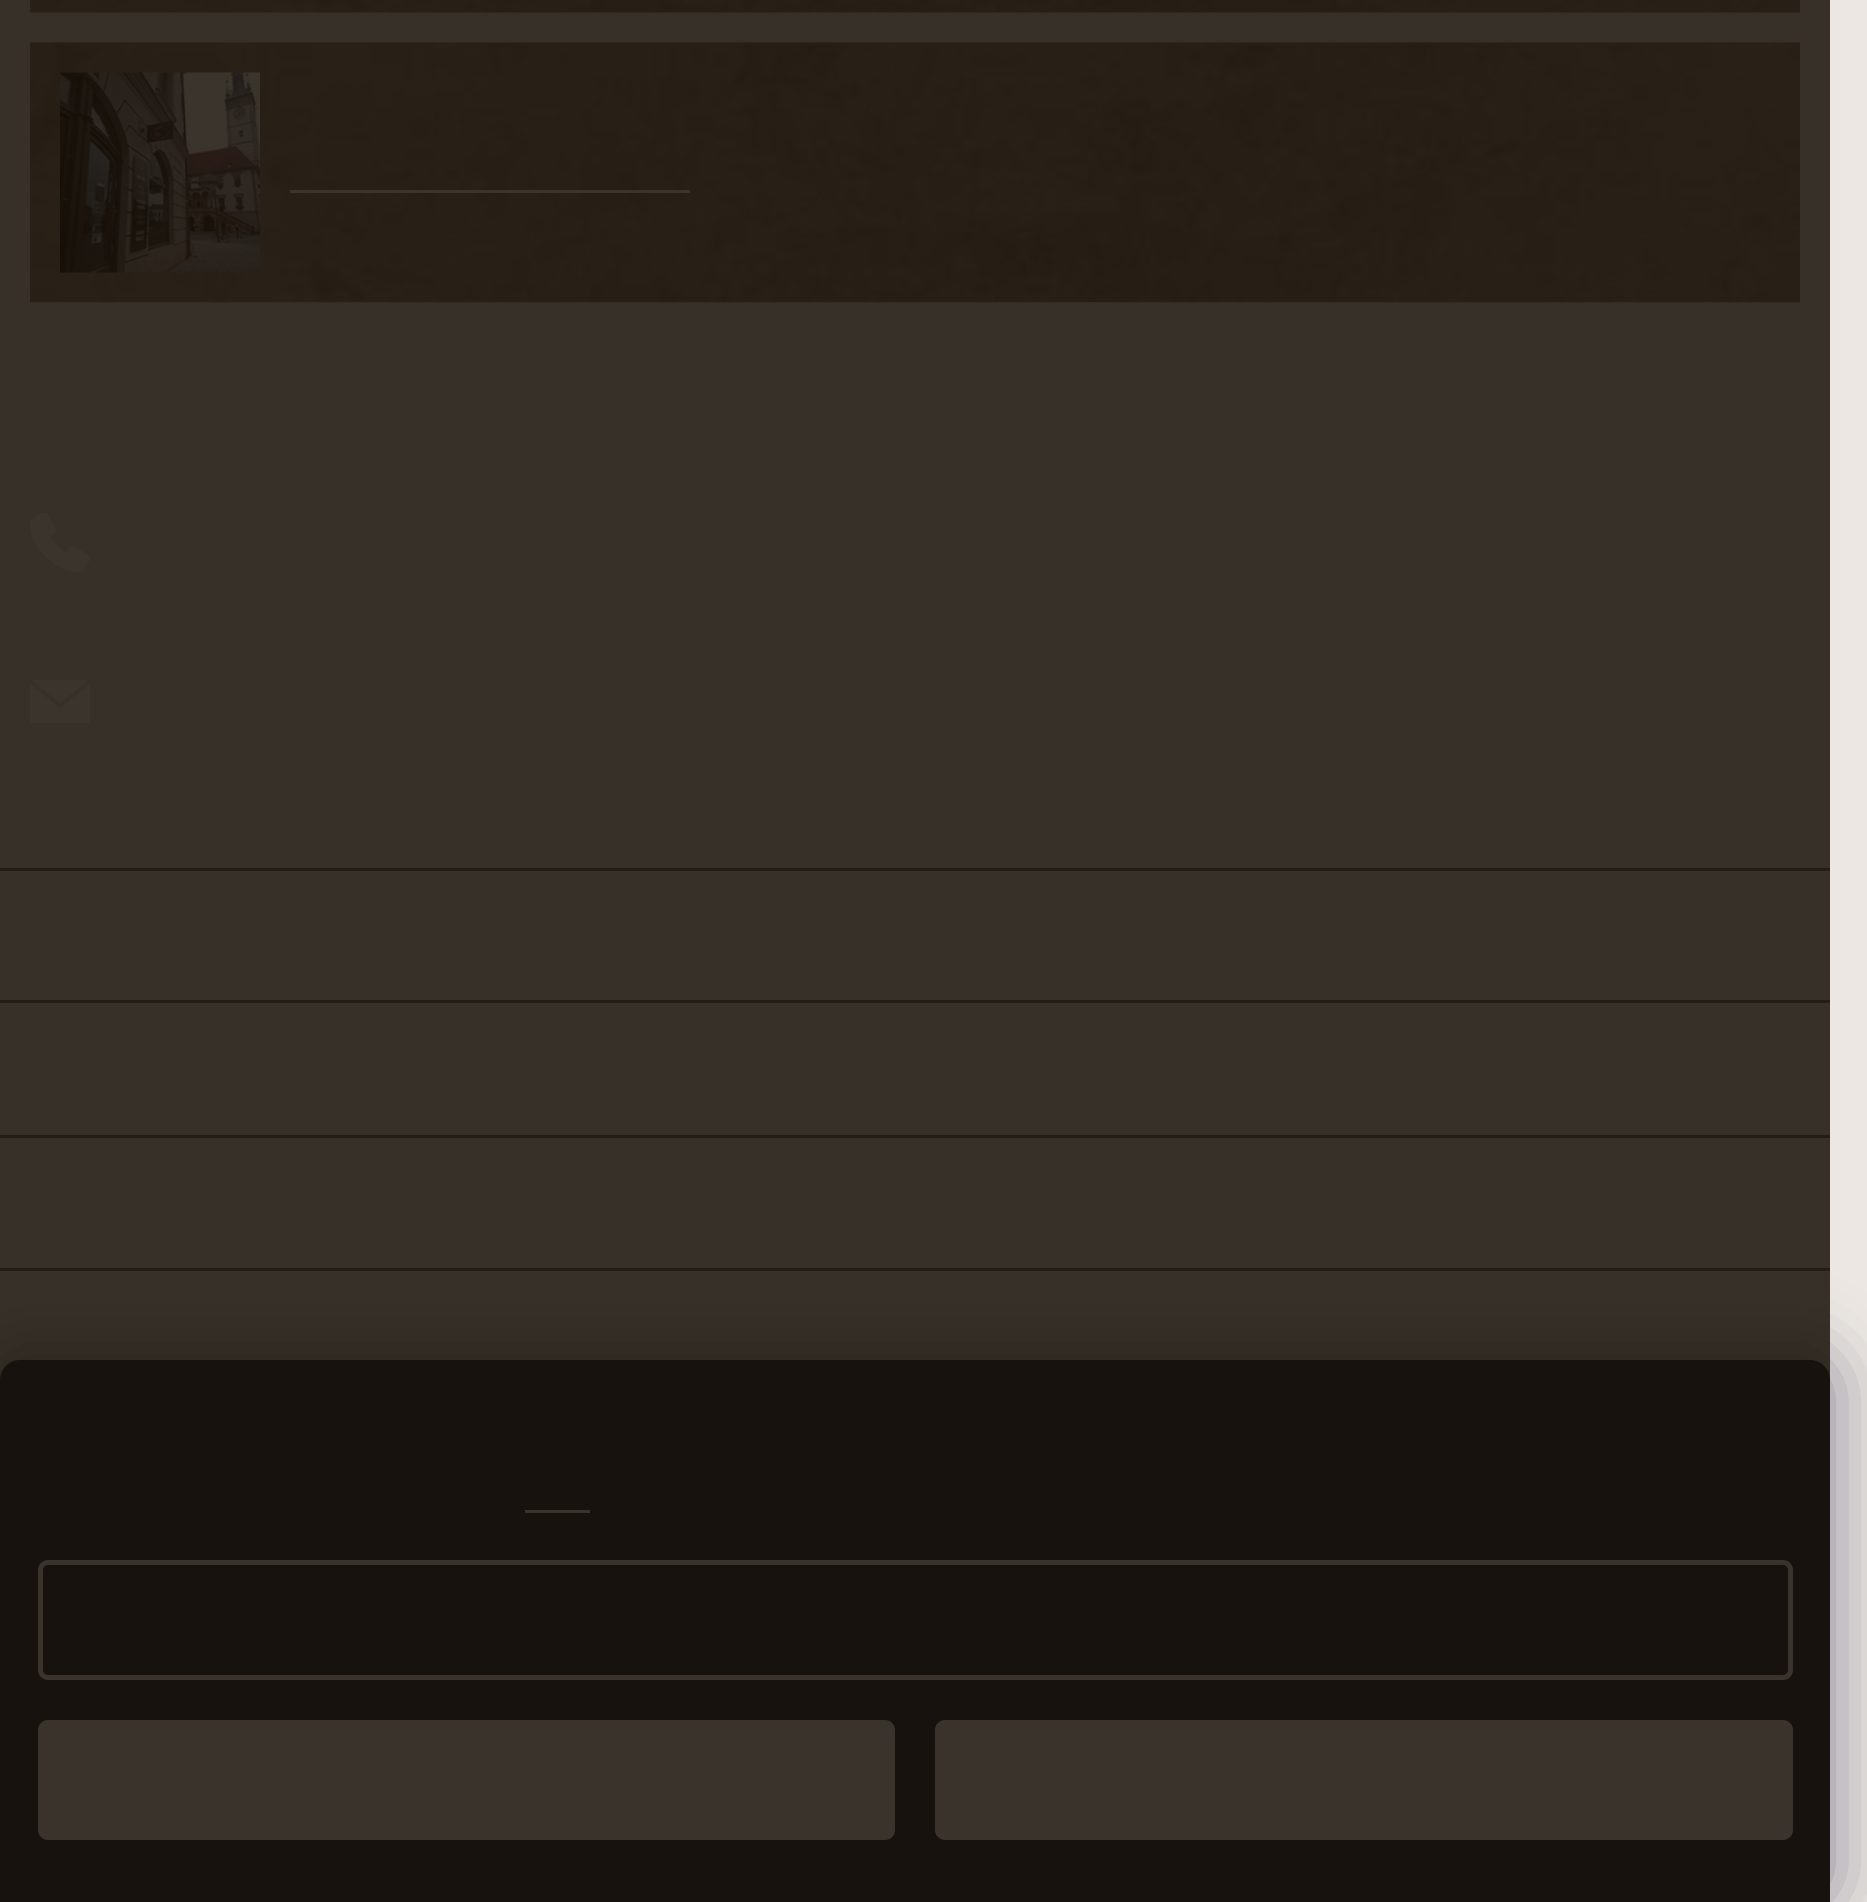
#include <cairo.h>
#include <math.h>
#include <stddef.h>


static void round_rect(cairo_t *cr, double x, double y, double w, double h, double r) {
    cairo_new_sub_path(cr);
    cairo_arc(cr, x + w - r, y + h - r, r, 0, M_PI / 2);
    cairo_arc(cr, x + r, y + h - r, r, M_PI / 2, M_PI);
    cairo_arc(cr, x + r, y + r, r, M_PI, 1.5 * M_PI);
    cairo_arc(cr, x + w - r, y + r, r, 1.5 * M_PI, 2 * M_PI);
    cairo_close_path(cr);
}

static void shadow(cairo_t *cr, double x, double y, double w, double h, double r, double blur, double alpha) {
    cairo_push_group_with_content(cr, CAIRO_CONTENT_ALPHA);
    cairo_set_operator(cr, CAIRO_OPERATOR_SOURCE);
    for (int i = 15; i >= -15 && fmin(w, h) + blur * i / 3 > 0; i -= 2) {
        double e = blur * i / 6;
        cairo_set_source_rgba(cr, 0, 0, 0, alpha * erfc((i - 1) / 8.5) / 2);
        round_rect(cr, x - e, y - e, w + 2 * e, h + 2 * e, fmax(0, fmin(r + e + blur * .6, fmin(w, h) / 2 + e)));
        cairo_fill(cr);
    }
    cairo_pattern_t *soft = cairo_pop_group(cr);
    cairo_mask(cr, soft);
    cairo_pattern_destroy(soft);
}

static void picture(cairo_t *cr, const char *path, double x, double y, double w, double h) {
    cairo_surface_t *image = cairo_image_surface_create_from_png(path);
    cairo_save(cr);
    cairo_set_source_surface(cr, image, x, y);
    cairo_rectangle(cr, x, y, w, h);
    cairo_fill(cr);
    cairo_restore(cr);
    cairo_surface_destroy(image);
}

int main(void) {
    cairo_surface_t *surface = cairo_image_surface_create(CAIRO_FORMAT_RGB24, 1867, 1902);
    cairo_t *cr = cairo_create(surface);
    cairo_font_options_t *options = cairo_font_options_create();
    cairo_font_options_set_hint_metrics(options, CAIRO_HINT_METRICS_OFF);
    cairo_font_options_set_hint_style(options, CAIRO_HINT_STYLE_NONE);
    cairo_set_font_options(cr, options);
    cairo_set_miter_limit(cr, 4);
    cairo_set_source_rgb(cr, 0.925, 0.906, 0.89);
    cairo_paint(cr);
    picture(cr, "img1.png", 30, 0, 1770, 13);
    picture(cr, "img2.png", 30, 42, 1770, 261);
    picture(cr, "img3.png", 60, 72, 200, 201);
    cairo_set_source_rgb(cr, 1, 1, 1);
    cairo_rectangle(cr, 290, 190, 400, 3);
    cairo_fill(cr);
    cairo_set_source_rgb(cr, 0.412, 0.384, 0.357);
    cairo_rectangle(cr, 0, 868, 1830, 3);
    cairo_fill(cr);
    picture(cr, "img4.png", 30, 513, 60, 59);
    picture(cr, "img5.png", 30, 680, 60, 43);
    cairo_rectangle(cr, 0, 1000, 1830, 3);
    cairo_fill(cr);
    cairo_rectangle(cr, 0, 1135, 1830, 3);
    cairo_fill(cr);
    cairo_rectangle(cr, 0, 1268, 1830, 3);
    cairo_fill(cr);
    cairo_set_source_rgb(cr, 0.106, 0.098, 0.224);
    shadow(cr, 0, 1360, 1830, 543, 20, 37.5, 0.5);
    cairo_set_source_rgb(cr, 0.102, 0.098, 0.216);
    cairo_new_path(cr);
    cairo_move_to(cr, 20, 1360);
    cairo_line_to(cr, 1810, 1360);
    cairo_curve_to(cr, 1821, 1360, 1830, 1369, 1830, 1380);
    cairo_line_to(cr, 1830, 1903);
    cairo_line_to(cr, 0, 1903);
    cairo_line_to(cr, 0, 1380);
    cairo_curve_to(cr, 0, 1369, 9, 1360, 20, 1360);
    cairo_close_path(cr);
    cairo_fill(cr);
    cairo_set_source_rgb(cr, 0.973, 0.98, 0.984);
    cairo_rectangle(cr, 525, 1510, 65, 3);
    cairo_fill(cr);
    round_rect(cr, 40.5, 1562.5, 1750, 115, 7.5);
    cairo_set_line_width(cr, 5);
    cairo_stroke(cr);
    round_rect(cr, 38, 1720, 857, 120, 10);
    cairo_fill(cr);
    round_rect(cr, 935, 1720, 858, 120, 10);
    cairo_fill(cr);
    cairo_set_source_rgba(cr, 0.094, 0.067, 0.035, 0.85);
    cairo_rectangle(cr, 0, 0, 1830, 1902);
    cairo_fill(cr);
    cairo_surface_write_to_png(surface, "page.png");
    cairo_font_options_destroy(options);
    cairo_destroy(cr);
    cairo_surface_destroy(surface);
    return 0;
}
